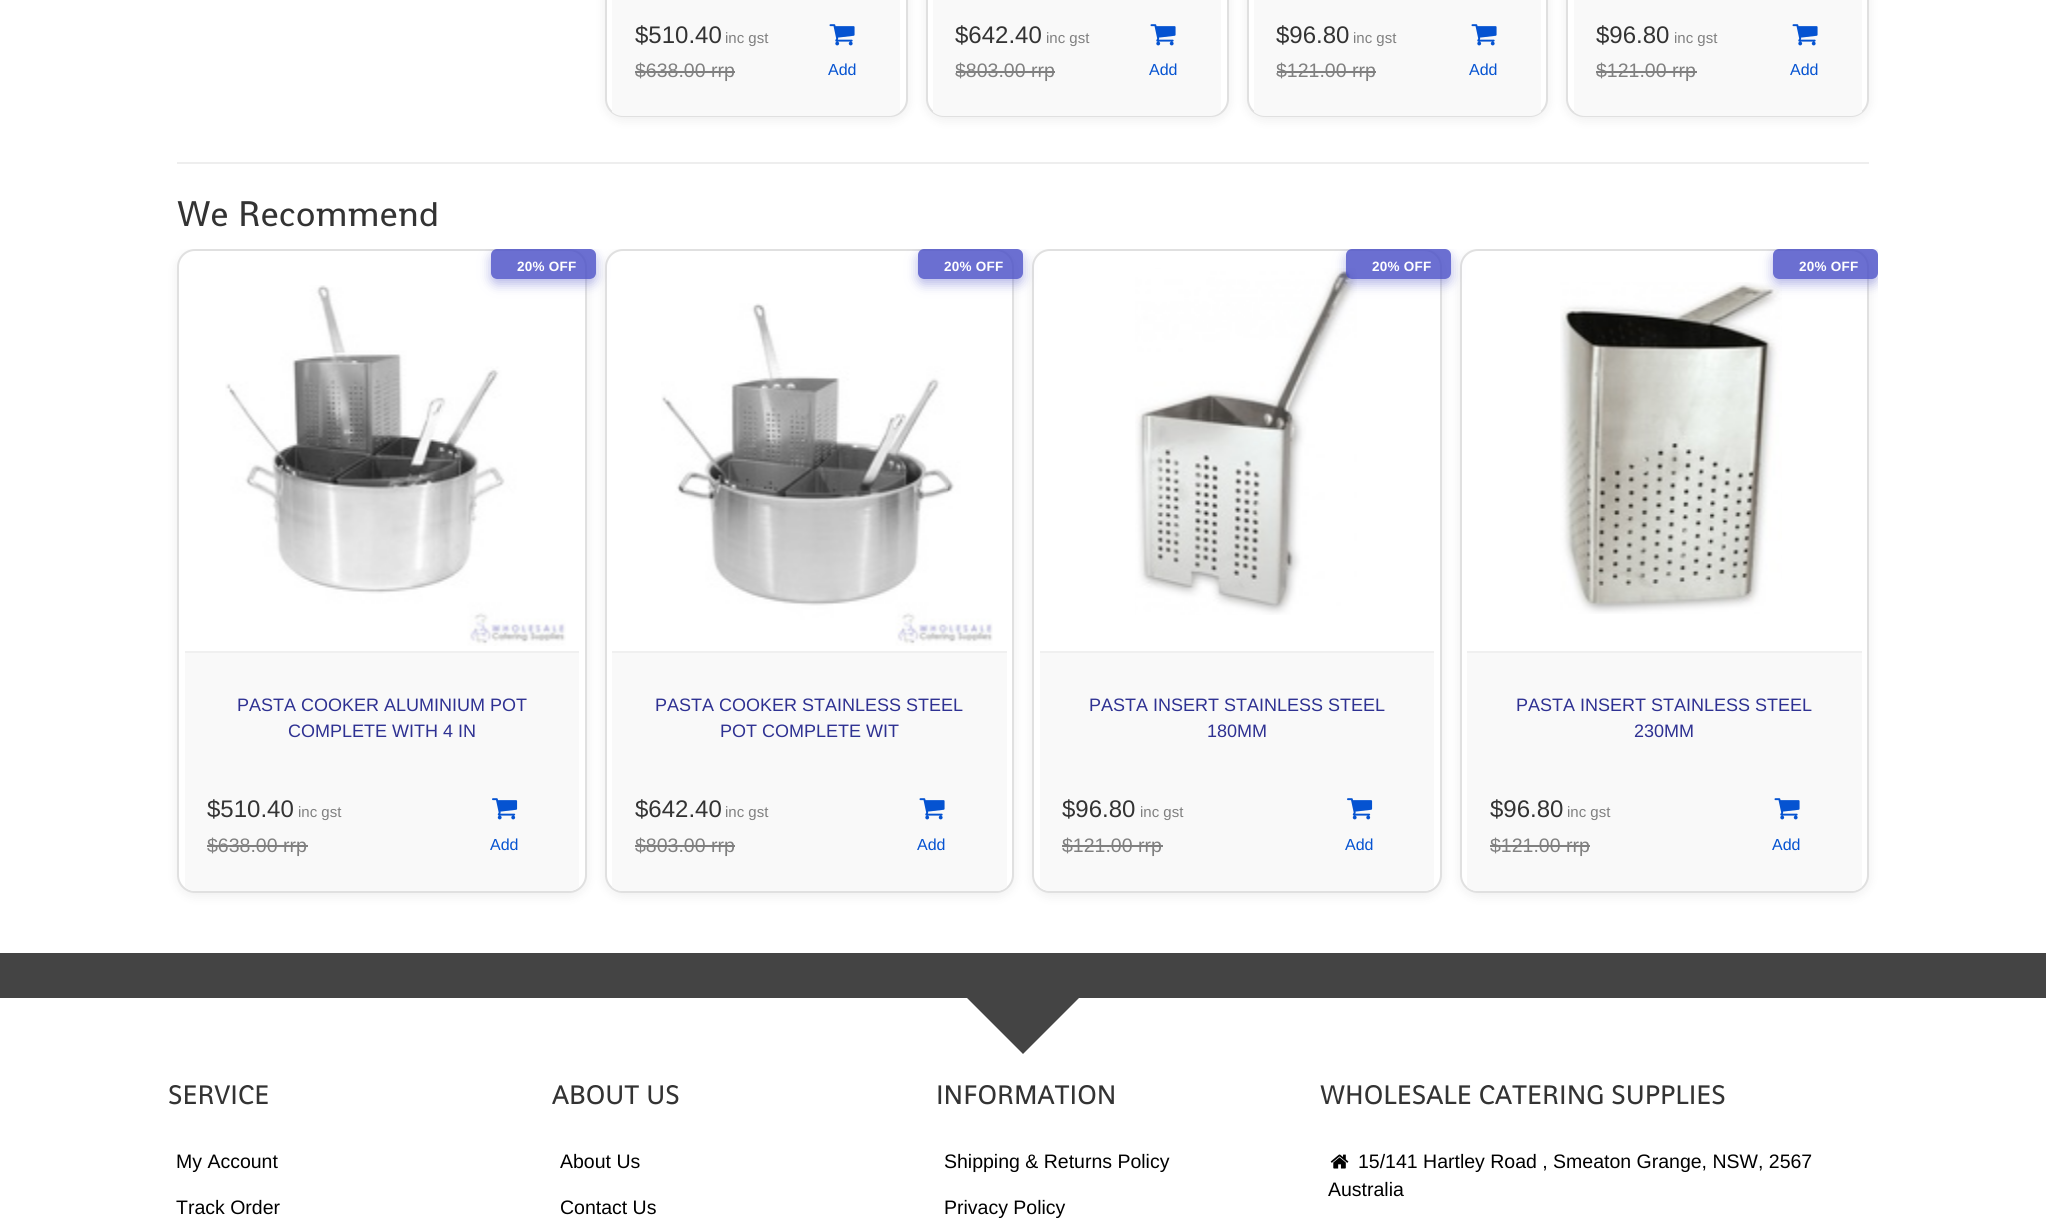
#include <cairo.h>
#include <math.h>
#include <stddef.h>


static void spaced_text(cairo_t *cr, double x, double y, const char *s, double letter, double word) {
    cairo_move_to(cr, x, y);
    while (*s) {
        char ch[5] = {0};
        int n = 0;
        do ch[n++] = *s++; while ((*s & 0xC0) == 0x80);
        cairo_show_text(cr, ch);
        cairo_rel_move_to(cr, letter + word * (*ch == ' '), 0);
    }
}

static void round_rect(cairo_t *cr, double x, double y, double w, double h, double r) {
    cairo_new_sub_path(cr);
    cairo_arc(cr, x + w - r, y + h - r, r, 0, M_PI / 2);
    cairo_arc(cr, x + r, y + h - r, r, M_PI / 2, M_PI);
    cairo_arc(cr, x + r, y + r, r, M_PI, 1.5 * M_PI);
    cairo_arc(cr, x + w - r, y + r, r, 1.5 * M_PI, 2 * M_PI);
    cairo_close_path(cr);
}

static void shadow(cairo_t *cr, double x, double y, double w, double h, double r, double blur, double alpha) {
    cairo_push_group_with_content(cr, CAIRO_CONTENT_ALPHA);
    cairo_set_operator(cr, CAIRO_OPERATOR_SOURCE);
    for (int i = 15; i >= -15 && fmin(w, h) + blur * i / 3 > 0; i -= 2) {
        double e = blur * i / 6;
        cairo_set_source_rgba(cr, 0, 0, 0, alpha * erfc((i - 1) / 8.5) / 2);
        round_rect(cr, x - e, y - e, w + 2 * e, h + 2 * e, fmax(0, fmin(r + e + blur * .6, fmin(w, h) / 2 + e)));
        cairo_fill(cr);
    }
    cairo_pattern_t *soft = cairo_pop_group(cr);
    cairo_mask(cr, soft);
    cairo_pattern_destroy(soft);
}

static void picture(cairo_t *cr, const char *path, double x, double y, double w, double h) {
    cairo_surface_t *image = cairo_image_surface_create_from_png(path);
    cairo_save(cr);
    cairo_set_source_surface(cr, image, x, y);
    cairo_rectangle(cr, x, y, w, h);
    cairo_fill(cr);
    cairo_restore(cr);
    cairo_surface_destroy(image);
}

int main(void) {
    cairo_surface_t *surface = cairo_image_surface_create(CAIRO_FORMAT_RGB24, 2046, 1225);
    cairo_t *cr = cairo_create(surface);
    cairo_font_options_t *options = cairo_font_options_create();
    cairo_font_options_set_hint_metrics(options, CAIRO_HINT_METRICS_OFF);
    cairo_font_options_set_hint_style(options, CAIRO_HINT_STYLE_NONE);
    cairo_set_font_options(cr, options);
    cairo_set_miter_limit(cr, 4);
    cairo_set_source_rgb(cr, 1, 1, 1);
    cairo_paint(cr);
    cairo_set_source_rgb(cr, 0, 0, 0);
    shadow(cr, 605, -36, 303, 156, 18, 6, 0.07);
    cairo_set_source_rgb(cr, 1, 1, 1);
    round_rect(cr, 606, -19, 301, 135, 17);
    cairo_fill_preserve(cr);
    cairo_set_source_rgb(cr, 0.878, 0.878, 0.878);
    cairo_stroke(cr);
    cairo_save(cr);
    round_rect(cr, 606, -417, 300, 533, 17);
    cairo_clip(cr);
    cairo_set_source_rgb(cr, 0.976, 0.976, 0.976);
    cairo_rectangle(cr, 612, 0, 288, 116);
    cairo_fill(cr);
    cairo_restore(cr);
    cairo_select_font_face(cr, "Liberation Sans", CAIRO_FONT_SLANT_NORMAL, CAIRO_FONT_WEIGHT_NORMAL);
    cairo_set_font_size(cr, 24);
    cairo_set_source_rgb(cr, 0.2, 0.2, 0.2);
    cairo_move_to(cr, 635, 43);
    cairo_show_text(cr, "$510.40");
    cairo_set_font_size(cr, 15);
    cairo_set_source_rgb(cr, 0.502, 0.502, 0.502);
    cairo_move_to(cr, 725, 43);
    cairo_show_text(cr, "inc gst");
    cairo_set_font_size(cr, 19.5);
    cairo_move_to(cr, 635, 77);
    cairo_show_text(cr, "$638.00 rrp");
    cairo_rectangle(cr, 635, 71, 100, 2);
    cairo_fill(cr);
    picture(cr, "img1.png", 829, 24, 26, 22);
    cairo_set_font_size(cr, 16);
    cairo_set_source_rgb(cr, 0.02, 0.325, 0.82);
    cairo_move_to(cr, 828, 75);
    cairo_show_text(cr, "Add");
    cairo_set_source_rgb(cr, 0, 0, 0);
    shadow(cr, 926, -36, 303, 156, 18, 6, 0.07);
    cairo_set_source_rgb(cr, 1, 1, 1);
    round_rect(cr, 927, -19, 301, 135, 17);
    cairo_fill_preserve(cr);
    cairo_set_source_rgb(cr, 0.878, 0.878, 0.878);
    cairo_stroke(cr);
    cairo_save(cr);
    round_rect(cr, 927, -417, 300, 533, 17);
    cairo_clip(cr);
    cairo_set_source_rgb(cr, 0.976, 0.976, 0.976);
    cairo_rectangle(cr, 933, 0, 288, 116);
    cairo_fill(cr);
    cairo_restore(cr);
    cairo_set_font_size(cr, 24);
    cairo_set_source_rgb(cr, 0.2, 0.2, 0.2);
    cairo_move_to(cr, 955, 43);
    cairo_show_text(cr, "$642.40");
    cairo_set_font_size(cr, 15);
    cairo_set_source_rgb(cr, 0.502, 0.502, 0.502);
    cairo_move_to(cr, 1046, 43);
    cairo_show_text(cr, "inc gst");
    cairo_set_font_size(cr, 19.5);
    cairo_move_to(cr, 955, 77);
    cairo_show_text(cr, "$803.00 rrp");
    cairo_rectangle(cr, 956, 71, 99, 2);
    cairo_fill(cr);
    picture(cr, "img1.png", 1150, 24, 26, 22);
    cairo_set_font_size(cr, 16);
    cairo_set_source_rgb(cr, 0.02, 0.325, 0.82);
    cairo_move_to(cr, 1149, 75);
    cairo_show_text(cr, "Add");
    cairo_set_source_rgb(cr, 0, 0, 0);
    shadow(cr, 1247, -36, 301, 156, 18, 6, 0.07);
    cairo_set_source_rgb(cr, 1, 1, 1);
    round_rect(cr, 1248, -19, 299, 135, 17);
    cairo_fill_preserve(cr);
    cairo_set_source_rgb(cr, 0.878, 0.878, 0.878);
    cairo_stroke(cr);
    cairo_save(cr);
    round_rect(cr, 1248, -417, 299, 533, 17);
    cairo_clip(cr);
    cairo_set_source_rgb(cr, 0.976, 0.976, 0.976);
    cairo_rectangle(cr, 1254, 0, 287, 116);
    cairo_fill(cr);
    cairo_restore(cr);
    cairo_set_font_size(cr, 24);
    cairo_set_source_rgb(cr, 0.2, 0.2, 0.2);
    cairo_move_to(cr, 1276, 43);
    cairo_show_text(cr, "$96.80");
    cairo_set_font_size(cr, 15);
    cairo_set_source_rgb(cr, 0.502, 0.502, 0.502);
    cairo_move_to(cr, 1353, 43);
    cairo_show_text(cr, "inc gst");
    cairo_set_font_size(cr, 19.5);
    cairo_move_to(cr, 1276, 77);
    cairo_show_text(cr, "$121.00 rrp");
    cairo_rectangle(cr, 1277, 71, 99, 2);
    cairo_fill(cr);
    picture(cr, "img1.png", 1471, 24, 26, 22);
    cairo_set_font_size(cr, 16);
    cairo_set_source_rgb(cr, 0.02, 0.325, 0.82);
    cairo_move_to(cr, 1469, 75);
    cairo_show_text(cr, "Add");
    cairo_set_source_rgb(cr, 0, 0, 0);
    shadow(cr, 1566, -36, 303, 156, 18, 6, 0.07);
    cairo_set_source_rgb(cr, 1, 1, 1);
    round_rect(cr, 1567, -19, 301, 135, 17);
    cairo_fill_preserve(cr);
    cairo_set_source_rgb(cr, 0.878, 0.878, 0.878);
    cairo_stroke(cr);
    cairo_save(cr);
    round_rect(cr, 1568, -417, 300, 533, 17);
    cairo_clip(cr);
    cairo_set_source_rgb(cr, 0.976, 0.976, 0.976);
    cairo_rectangle(cr, 1574, 0, 288, 116);
    cairo_fill(cr);
    cairo_restore(cr);
    cairo_set_font_size(cr, 24);
    cairo_set_source_rgb(cr, 0.2, 0.2, 0.2);
    cairo_move_to(cr, 1596, 43);
    cairo_show_text(cr, "$96.80");
    cairo_set_font_size(cr, 15);
    cairo_set_source_rgb(cr, 0.502, 0.502, 0.502);
    cairo_move_to(cr, 1674, 43);
    cairo_show_text(cr, "inc gst");
    cairo_set_font_size(cr, 19.5);
    cairo_move_to(cr, 1596, 77);
    cairo_show_text(cr, "$121.00 rrp");
    cairo_rectangle(cr, 1596, 71, 101, 2);
    cairo_fill(cr);
    picture(cr, "img1.png", 1792, 24, 26, 22);
    cairo_set_font_size(cr, 16);
    cairo_set_source_rgb(cr, 0.02, 0.325, 0.82);
    cairo_move_to(cr, 1790, 75);
    cairo_show_text(cr, "Add");
    cairo_set_source_rgb(cr, 0.933, 0.933, 0.933);
    cairo_rectangle(cr, 177, 162, 1692, 2);
    cairo_fill(cr);
    cairo_select_font_face(cr, "Shanti", CAIRO_FONT_SLANT_NORMAL, CAIRO_FONT_WEIGHT_NORMAL);
    cairo_set_font_size(cr, 36);
    cairo_set_source_rgb(cr, 0.2, 0.2, 0.2);
    cairo_move_to(cr, 177, 226);
    cairo_show_text(cr, "We Recommend");
    cairo_save(cr);
    cairo_rectangle(cr, 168, 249, 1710, 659);
    cairo_clip(cr);
    cairo_set_source_rgb(cr, 0, 0, 0);
    shadow(cr, 177, 252, 410, 644, 18, 6, 0.07);
    cairo_restore(cr);
    cairo_set_source_rgb(cr, 1, 1, 1);
    round_rect(cr, 178, 250, 408, 642, 17);
    cairo_fill_preserve(cr);
    cairo_set_source_rgb(cr, 0.878, 0.878, 0.878);
    cairo_stroke(cr);
    picture(cr, "img2.png", 225, 285, 341, 361);
    cairo_save(cr);
    cairo_rectangle(cr, 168, 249, 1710, 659);
    cairo_clip(cr);
    cairo_set_source_rgb(cr, 0, 0, 0);
    shadow(cr, 605, 252, 409, 644, 18, 6, 0.07);
    cairo_restore(cr);
    cairo_set_source_rgb(cr, 1, 1, 1);
    round_rect(cr, 606, 250, 407, 642, 17);
    cairo_fill_preserve(cr);
    cairo_set_source_rgb(cr, 0.878, 0.878, 0.878);
    cairo_stroke(cr);
    cairo_save(cr);
    cairo_rectangle(cr, 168, 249, 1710, 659);
    cairo_clip(cr);
    cairo_set_fill_rule(cr, CAIRO_FILL_RULE_EVEN_ODD);
    cairo_new_path(cr);
    cairo_move_to(cr, 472, 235);
    cairo_line_to(cr, 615, 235);
    cairo_line_to(cr, 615, 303);
    cairo_line_to(cr, 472, 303);
    cairo_close_path(cr);
    cairo_move_to(cr, 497, 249);
    cairo_line_to(cr, 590, 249);
    cairo_curve_to(cr, 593.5, 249, 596, 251.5, 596, 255);
    cairo_line_to(cr, 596, 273);
    cairo_curve_to(cr, 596, 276.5, 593.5, 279, 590, 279);
    cairo_line_to(cr, 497, 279);
    cairo_curve_to(cr, 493.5, 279, 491, 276.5, 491, 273);
    cairo_line_to(cr, 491, 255);
    cairo_curve_to(cr, 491, 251.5, 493.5, 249, 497, 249);
    cairo_close_path(cr);
    cairo_clip(cr);
    cairo_set_source_rgb(cr, 0.278, 0.294, 0.773);
    shadow(cr, 491, 254, 105, 30, 6, 6, 0.4);
    cairo_restore(cr);
    cairo_set_source_rgba(cr, 0.278, 0.294, 0.773, 0.8);
    round_rect(cr, 491, 249, 105, 30, 6);
    cairo_fill(cr);
    cairo_select_font_face(cr, "Liberation Sans", CAIRO_FONT_SLANT_NORMAL, CAIRO_FONT_WEIGHT_BOLD);
    cairo_set_font_size(cr, 13.5);
    cairo_set_source_rgb(cr, 1, 1, 1);
    spaced_text(cr, 517, 271, "20% OFF", 0.25, 0);
    cairo_save(cr);
    round_rect(cr, 179, 251, 406, 640, 17);
    cairo_clip(cr);
    cairo_set_source_rgb(cr, 0.976, 0.976, 0.976);
    cairo_rectangle(cr, 185, 653, 394, 238);
    cairo_fill(cr);
    cairo_restore(cr);
    cairo_set_source_rgb(cr, 0.941, 0.941, 0.941);
    cairo_rectangle(cr, 185, 651, 394, 2);
    cairo_fill(cr);
    cairo_select_font_face(cr, "Liberation Sans", CAIRO_FONT_SLANT_NORMAL, CAIRO_FONT_WEIGHT_NORMAL);
    cairo_set_font_size(cr, 18);
    cairo_set_source_rgb(cr, 0.18, 0.192, 0.573);
    cairo_move_to(cr, 237, 711);
    cairo_show_text(cr, "PASTA COOKER ALUMINIUM POT");
    cairo_move_to(cr, 288, 737);
    cairo_show_text(cr, "COMPLETE WITH 4 IN");
    cairo_set_font_size(cr, 24);
    cairo_set_source_rgb(cr, 0.2, 0.2, 0.2);
    cairo_move_to(cr, 207, 817);
    cairo_show_text(cr, "$510.40");
    cairo_set_font_size(cr, 15);
    cairo_set_source_rgb(cr, 0.502, 0.502, 0.502);
    cairo_move_to(cr, 298, 817);
    cairo_show_text(cr, "inc gst");
    cairo_set_font_size(cr, 19.5);
    cairo_move_to(cr, 207, 852);
    cairo_show_text(cr, "$638.00 rrp");
    cairo_rectangle(cr, 207, 845, 101, 2);
    cairo_fill(cr);
    picture(cr, "img3.png", 492, 798, 26, 22);
    cairo_set_font_size(cr, 16);
    cairo_set_source_rgb(cr, 0.02, 0.325, 0.82);
    cairo_move_to(cr, 490, 850);
    cairo_show_text(cr, "Add");
    cairo_save(cr);
    cairo_rectangle(cr, 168, 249, 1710, 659);
    cairo_clip(cr);
    cairo_set_source_rgb(cr, 0, 0, 0);
    shadow(cr, 1032, 252, 410, 644, 18, 6, 0.07);
    cairo_restore(cr);
    cairo_set_source_rgb(cr, 1, 1, 1);
    round_rect(cr, 1033, 250, 408, 642, 17);
    cairo_fill_preserve(cr);
    cairo_set_source_rgb(cr, 0.878, 0.878, 0.878);
    cairo_stroke(cr);
    cairo_save(cr);
    cairo_rectangle(cr, 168, 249, 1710, 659);
    cairo_clip(cr);
    cairo_set_fill_rule(cr, CAIRO_FILL_RULE_EVEN_ODD);
    cairo_new_path(cr);
    cairo_move_to(cr, 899, 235);
    cairo_line_to(cr, 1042, 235);
    cairo_line_to(cr, 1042, 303);
    cairo_line_to(cr, 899, 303);
    cairo_close_path(cr);
    cairo_move_to(cr, 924, 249);
    cairo_line_to(cr, 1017, 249);
    cairo_curve_to(cr, 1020.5, 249, 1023, 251.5, 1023, 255);
    cairo_line_to(cr, 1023, 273);
    cairo_curve_to(cr, 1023, 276.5, 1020.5, 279, 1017, 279);
    cairo_line_to(cr, 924, 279);
    cairo_curve_to(cr, 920.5, 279, 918, 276.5, 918, 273);
    cairo_line_to(cr, 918, 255);
    cairo_curve_to(cr, 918, 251.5, 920.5, 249, 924, 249);
    cairo_close_path(cr);
    cairo_clip(cr);
    cairo_set_source_rgb(cr, 0.278, 0.294, 0.773);
    shadow(cr, 918, 254, 105, 30, 6, 6, 0.4);
    cairo_restore(cr);
    cairo_set_source_rgba(cr, 0.278, 0.294, 0.773, 0.8);
    round_rect(cr, 918, 249, 105, 30, 6);
    cairo_fill(cr);
    cairo_select_font_face(cr, "Liberation Sans", CAIRO_FONT_SLANT_NORMAL, CAIRO_FONT_WEIGHT_BOLD);
    cairo_set_font_size(cr, 13.5);
    cairo_set_source_rgb(cr, 1, 1, 1);
    spaced_text(cr, 944, 271, "20% OFF", 0.25, 0);
    picture(cr, "img4.png", 661, 303, 332, 343);
    cairo_save(cr);
    round_rect(cr, 606, 251, 407, 640, 17);
    cairo_clip(cr);
    cairo_set_source_rgb(cr, 0.976, 0.976, 0.976);
    cairo_rectangle(cr, 612, 653, 395, 238);
    cairo_fill(cr);
    cairo_restore(cr);
    cairo_set_source_rgb(cr, 0.941, 0.941, 0.941);
    cairo_rectangle(cr, 612, 651, 395, 2);
    cairo_fill(cr);
    cairo_select_font_face(cr, "Liberation Sans", CAIRO_FONT_SLANT_NORMAL, CAIRO_FONT_WEIGHT_NORMAL);
    cairo_set_font_size(cr, 18);
    cairo_set_source_rgb(cr, 0.18, 0.192, 0.573);
    cairo_move_to(cr, 655, 711);
    cairo_show_text(cr, "PASTA COOKER STAINLESS STEEL");
    cairo_move_to(cr, 720, 737);
    cairo_show_text(cr, "POT COMPLETE WIT");
    cairo_set_font_size(cr, 24);
    cairo_set_source_rgb(cr, 0.2, 0.2, 0.2);
    cairo_move_to(cr, 635, 817);
    cairo_show_text(cr, "$642.40");
    cairo_set_font_size(cr, 15);
    cairo_set_source_rgb(cr, 0.502, 0.502, 0.502);
    cairo_move_to(cr, 725, 817);
    cairo_show_text(cr, "inc gst");
    cairo_set_font_size(cr, 19.5);
    cairo_move_to(cr, 635, 852);
    cairo_show_text(cr, "$803.00 rrp");
    cairo_rectangle(cr, 635, 845, 100, 2);
    cairo_fill(cr);
    picture(cr, "img1.png", 919, 798, 26, 22);
    cairo_set_font_size(cr, 16);
    cairo_set_source_rgb(cr, 0.02, 0.325, 0.82);
    cairo_move_to(cr, 917, 850);
    cairo_show_text(cr, "Add");
    picture(cr, "img5.png", 1135, 268, 222, 347);
    cairo_save(cr);
    cairo_rectangle(cr, 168, 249, 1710, 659);
    cairo_clip(cr);
    cairo_set_source_rgb(cr, 0, 0, 0);
    shadow(cr, 1460, 252, 409, 644, 18, 6, 0.07);
    cairo_restore(cr);
    cairo_set_source_rgb(cr, 1, 1, 1);
    round_rect(cr, 1461, 250, 407, 642, 17);
    cairo_fill_preserve(cr);
    cairo_set_source_rgb(cr, 0.878, 0.878, 0.878);
    cairo_stroke(cr);
    cairo_save(cr);
    cairo_rectangle(cr, 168, 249, 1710, 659);
    cairo_clip(cr);
    cairo_set_fill_rule(cr, CAIRO_FILL_RULE_EVEN_ODD);
    cairo_new_path(cr);
    cairo_move_to(cr, 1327, 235);
    cairo_line_to(cr, 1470, 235);
    cairo_line_to(cr, 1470, 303);
    cairo_line_to(cr, 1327, 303);
    cairo_close_path(cr);
    cairo_move_to(cr, 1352, 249);
    cairo_line_to(cr, 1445, 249);
    cairo_curve_to(cr, 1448.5, 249, 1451, 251.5, 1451, 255);
    cairo_line_to(cr, 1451, 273);
    cairo_curve_to(cr, 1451, 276.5, 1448.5, 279, 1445, 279);
    cairo_line_to(cr, 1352, 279);
    cairo_curve_to(cr, 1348.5, 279, 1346, 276.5, 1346, 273);
    cairo_line_to(cr, 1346, 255);
    cairo_curve_to(cr, 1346, 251.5, 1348.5, 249, 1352, 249);
    cairo_close_path(cr);
    cairo_clip(cr);
    cairo_set_source_rgb(cr, 0.278, 0.294, 0.773);
    shadow(cr, 1346, 254, 105, 30, 6, 6, 0.4);
    cairo_restore(cr);
    cairo_set_source_rgba(cr, 0.278, 0.294, 0.773, 0.8);
    round_rect(cr, 1346, 249, 105, 30, 6);
    cairo_fill(cr);
    cairo_select_font_face(cr, "Liberation Sans", CAIRO_FONT_SLANT_NORMAL, CAIRO_FONT_WEIGHT_BOLD);
    cairo_set_font_size(cr, 13.5);
    cairo_set_source_rgb(cr, 1, 1, 1);
    spaced_text(cr, 1372, 271, "20% OFF", 0.25, 0);
    cairo_save(cr);
    round_rect(cr, 1034, 251, 406, 640, 17);
    cairo_clip(cr);
    cairo_set_source_rgb(cr, 0.976, 0.976, 0.976);
    cairo_rectangle(cr, 1040, 653, 394, 238);
    cairo_fill(cr);
    cairo_restore(cr);
    cairo_set_source_rgb(cr, 0.941, 0.941, 0.941);
    cairo_rectangle(cr, 1040, 651, 394, 2);
    cairo_fill(cr);
    cairo_select_font_face(cr, "Liberation Sans", CAIRO_FONT_SLANT_NORMAL, CAIRO_FONT_WEIGHT_NORMAL);
    cairo_set_font_size(cr, 18);
    cairo_set_source_rgb(cr, 0.18, 0.192, 0.573);
    cairo_move_to(cr, 1089, 711);
    cairo_show_text(cr, "PASTA INSERT STAINLESS STEEL");
    cairo_move_to(cr, 1207, 737);
    cairo_show_text(cr, "180MM");
    cairo_set_font_size(cr, 24);
    cairo_set_source_rgb(cr, 0.2, 0.2, 0.2);
    cairo_move_to(cr, 1062, 817);
    cairo_show_text(cr, "$96.80");
    cairo_set_font_size(cr, 15);
    cairo_set_source_rgb(cr, 0.502, 0.502, 0.502);
    cairo_move_to(cr, 1140, 817);
    cairo_show_text(cr, "inc gst");
    cairo_set_font_size(cr, 19.5);
    cairo_move_to(cr, 1062, 852);
    cairo_show_text(cr, "$121.00 rrp");
    cairo_rectangle(cr, 1062, 845, 101, 2);
    cairo_fill(cr);
    picture(cr, "img3.png", 1347, 798, 26, 22);
    cairo_set_font_size(cr, 16);
    cairo_set_source_rgb(cr, 0.02, 0.325, 0.82);
    cairo_move_to(cr, 1345, 850);
    cairo_show_text(cr, "Add");
    picture(cr, "img6.png", 1560, 282, 222, 332);
    cairo_save(cr);
    cairo_rectangle(cr, 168, 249, 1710, 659);
    cairo_clip(cr);
    cairo_set_fill_rule(cr, CAIRO_FILL_RULE_EVEN_ODD);
    cairo_new_path(cr);
    cairo_move_to(cr, 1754, 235);
    cairo_line_to(cr, 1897, 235);
    cairo_line_to(cr, 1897, 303);
    cairo_line_to(cr, 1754, 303);
    cairo_close_path(cr);
    cairo_move_to(cr, 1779, 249);
    cairo_line_to(cr, 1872, 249);
    cairo_curve_to(cr, 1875.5, 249, 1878, 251.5, 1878, 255);
    cairo_line_to(cr, 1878, 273);
    cairo_curve_to(cr, 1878, 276.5, 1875.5, 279, 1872, 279);
    cairo_line_to(cr, 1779, 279);
    cairo_curve_to(cr, 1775.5, 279, 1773, 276.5, 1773, 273);
    cairo_line_to(cr, 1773, 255);
    cairo_curve_to(cr, 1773, 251.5, 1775.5, 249, 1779, 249);
    cairo_close_path(cr);
    cairo_clip(cr);
    cairo_set_source_rgb(cr, 0.278, 0.294, 0.773);
    shadow(cr, 1773, 254, 105, 30, 6, 6, 0.4);
    cairo_restore(cr);
    cairo_set_source_rgba(cr, 0.278, 0.294, 0.773, 0.8);
    round_rect(cr, 1773, 249, 105, 30, 6);
    cairo_fill(cr);
    cairo_select_font_face(cr, "Liberation Sans", CAIRO_FONT_SLANT_NORMAL, CAIRO_FONT_WEIGHT_BOLD);
    cairo_set_font_size(cr, 13.5);
    cairo_set_source_rgb(cr, 1, 1, 1);
    spaced_text(cr, 1799, 271, "20% OFF", 0.25, 0);
    cairo_save(cr);
    round_rect(cr, 1461, 251, 407, 640, 17);
    cairo_clip(cr);
    cairo_set_source_rgb(cr, 0.976, 0.976, 0.976);
    cairo_rectangle(cr, 1467, 653, 395, 238);
    cairo_fill(cr);
    cairo_restore(cr);
    cairo_set_source_rgb(cr, 0.941, 0.941, 0.941);
    cairo_rectangle(cr, 1467, 651, 395, 2);
    cairo_fill(cr);
    cairo_select_font_face(cr, "Liberation Sans", CAIRO_FONT_SLANT_NORMAL, CAIRO_FONT_WEIGHT_NORMAL);
    cairo_set_font_size(cr, 18);
    cairo_set_source_rgb(cr, 0.18, 0.192, 0.573);
    cairo_move_to(cr, 1516, 711);
    cairo_show_text(cr, "PASTA INSERT STAINLESS STEEL");
    cairo_move_to(cr, 1634, 737);
    cairo_show_text(cr, "230MM");
    cairo_set_font_size(cr, 24);
    cairo_set_source_rgb(cr, 0.2, 0.2, 0.2);
    cairo_move_to(cr, 1490, 817);
    cairo_show_text(cr, "$96.80");
    cairo_set_font_size(cr, 15);
    cairo_set_source_rgb(cr, 0.502, 0.502, 0.502);
    cairo_move_to(cr, 1567, 817);
    cairo_show_text(cr, "inc gst");
    cairo_set_font_size(cr, 19.5);
    cairo_move_to(cr, 1490, 852);
    cairo_show_text(cr, "$121.00 rrp");
    cairo_rectangle(cr, 1490, 845, 100, 2);
    cairo_fill(cr);
    picture(cr, "img1.png", 1774, 798, 26, 22);
    cairo_set_font_size(cr, 16);
    cairo_set_source_rgb(cr, 0.02, 0.325, 0.82);
    cairo_move_to(cr, 1772, 850);
    cairo_show_text(cr, "Add");
    cairo_set_source_rgb(cr, 0.267, 0.267, 0.267);
    cairo_rectangle(cr, 0, 953, 2046, 45);
    cairo_fill(cr);
    cairo_new_path(cr);
    cairo_move_to(cr, 963, 994);
    cairo_line_to(cr, 1083, 994);
    cairo_line_to(cr, 1023, 1054);
    cairo_close_path(cr);
    cairo_fill(cr);
    cairo_select_font_face(cr, "Shanti", CAIRO_FONT_SLANT_NORMAL, CAIRO_FONT_WEIGHT_NORMAL);
    cairo_set_font_size(cr, 27);
    cairo_set_source_rgb(cr, 0.2, 0.2, 0.2);
    cairo_move_to(cr, 168, 1104);
    cairo_show_text(cr, "SERVICE");
    cairo_select_font_face(cr, "Liberation Sans", CAIRO_FONT_SLANT_NORMAL, CAIRO_FONT_WEIGHT_NORMAL);
    cairo_set_font_size(cr, 19.5);
    cairo_set_source_rgb(cr, 0, 0, 0);
    cairo_move_to(cr, 176, 1168);
    cairo_show_text(cr, "My Account");
    cairo_move_to(cr, 176, 1214);
    cairo_show_text(cr, "Track Order");
    cairo_select_font_face(cr, "Shanti", CAIRO_FONT_SLANT_NORMAL, CAIRO_FONT_WEIGHT_NORMAL);
    cairo_set_font_size(cr, 27);
    cairo_set_source_rgb(cr, 0.2, 0.2, 0.2);
    cairo_move_to(cr, 552, 1104);
    cairo_show_text(cr, "ABOUT US");
    cairo_select_font_face(cr, "Liberation Sans", CAIRO_FONT_SLANT_NORMAL, CAIRO_FONT_WEIGHT_NORMAL);
    cairo_set_font_size(cr, 19.5);
    cairo_set_source_rgb(cr, 0, 0, 0);
    cairo_move_to(cr, 560, 1168);
    cairo_show_text(cr, "About Us");
    cairo_move_to(cr, 560, 1214);
    cairo_show_text(cr, "Contact Us");
    cairo_select_font_face(cr, "Shanti", CAIRO_FONT_SLANT_NORMAL, CAIRO_FONT_WEIGHT_NORMAL);
    cairo_set_font_size(cr, 27);
    cairo_set_source_rgb(cr, 0.2, 0.2, 0.2);
    cairo_move_to(cr, 936, 1104);
    cairo_show_text(cr, "INFORMATION");
    cairo_select_font_face(cr, "Liberation Sans", CAIRO_FONT_SLANT_NORMAL, CAIRO_FONT_WEIGHT_NORMAL);
    cairo_set_font_size(cr, 19.5);
    cairo_set_source_rgb(cr, 0, 0, 0);
    cairo_move_to(cr, 944, 1168);
    cairo_show_text(cr, "Shipping & Returns Policy");
    cairo_move_to(cr, 944, 1214);
    cairo_show_text(cr, "Privacy Policy");
    cairo_select_font_face(cr, "Shanti", CAIRO_FONT_SLANT_NORMAL, CAIRO_FONT_WEIGHT_NORMAL);
    cairo_set_font_size(cr, 27);
    cairo_set_source_rgb(cr, 0.2, 0.2, 0.2);
    cairo_move_to(cr, 1320, 1104);
    cairo_show_text(cr, "WHOLESALE CATERING SUPPLIES");
    picture(cr, "img7.png", 1330, 1154, 19, 15);
    cairo_select_font_face(cr, "Liberation Sans", CAIRO_FONT_SLANT_NORMAL, CAIRO_FONT_WEIGHT_NORMAL);
    cairo_set_font_size(cr, 19.5);
    cairo_set_source_rgb(cr, 0, 0, 0);
    cairo_move_to(cr, 1358, 1168);
    cairo_show_text(cr, "15/141 Hartley Road , Smeaton Grange, NSW, 2567");
    cairo_move_to(cr, 1328, 1196);
    cairo_show_text(cr, "Australia");
    cairo_surface_write_to_png(surface, "page.png");
    cairo_font_options_destroy(options);
    cairo_destroy(cr);
    cairo_surface_destroy(surface);
    return 0;
}
